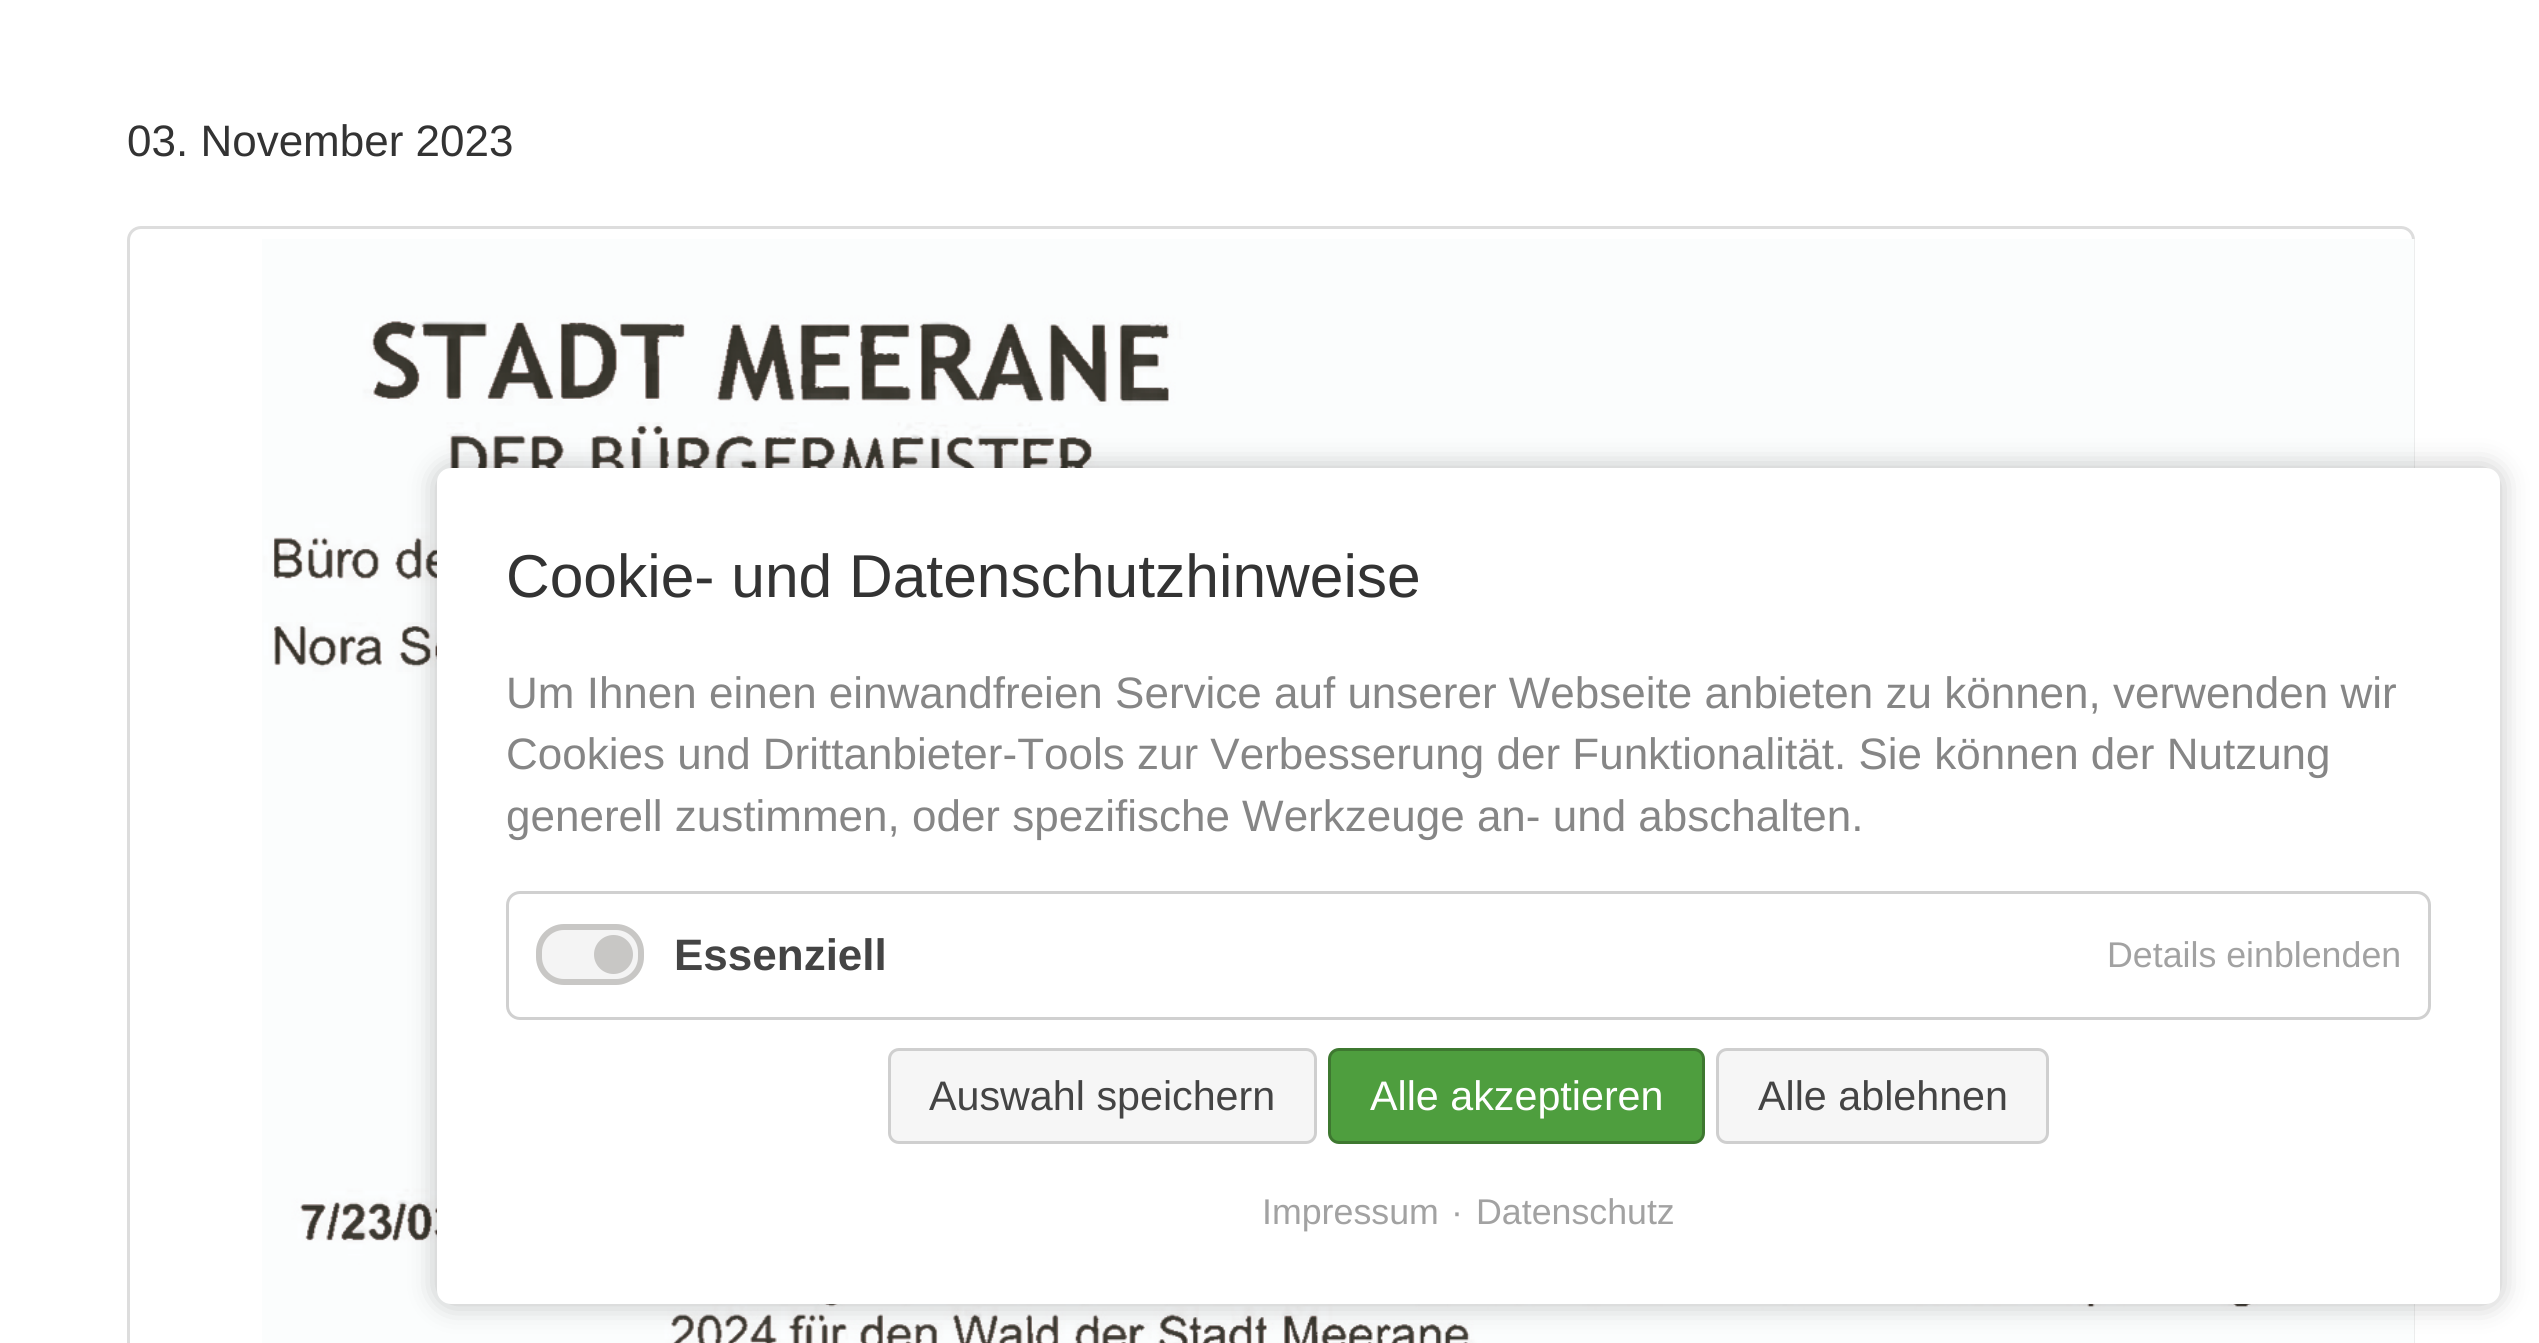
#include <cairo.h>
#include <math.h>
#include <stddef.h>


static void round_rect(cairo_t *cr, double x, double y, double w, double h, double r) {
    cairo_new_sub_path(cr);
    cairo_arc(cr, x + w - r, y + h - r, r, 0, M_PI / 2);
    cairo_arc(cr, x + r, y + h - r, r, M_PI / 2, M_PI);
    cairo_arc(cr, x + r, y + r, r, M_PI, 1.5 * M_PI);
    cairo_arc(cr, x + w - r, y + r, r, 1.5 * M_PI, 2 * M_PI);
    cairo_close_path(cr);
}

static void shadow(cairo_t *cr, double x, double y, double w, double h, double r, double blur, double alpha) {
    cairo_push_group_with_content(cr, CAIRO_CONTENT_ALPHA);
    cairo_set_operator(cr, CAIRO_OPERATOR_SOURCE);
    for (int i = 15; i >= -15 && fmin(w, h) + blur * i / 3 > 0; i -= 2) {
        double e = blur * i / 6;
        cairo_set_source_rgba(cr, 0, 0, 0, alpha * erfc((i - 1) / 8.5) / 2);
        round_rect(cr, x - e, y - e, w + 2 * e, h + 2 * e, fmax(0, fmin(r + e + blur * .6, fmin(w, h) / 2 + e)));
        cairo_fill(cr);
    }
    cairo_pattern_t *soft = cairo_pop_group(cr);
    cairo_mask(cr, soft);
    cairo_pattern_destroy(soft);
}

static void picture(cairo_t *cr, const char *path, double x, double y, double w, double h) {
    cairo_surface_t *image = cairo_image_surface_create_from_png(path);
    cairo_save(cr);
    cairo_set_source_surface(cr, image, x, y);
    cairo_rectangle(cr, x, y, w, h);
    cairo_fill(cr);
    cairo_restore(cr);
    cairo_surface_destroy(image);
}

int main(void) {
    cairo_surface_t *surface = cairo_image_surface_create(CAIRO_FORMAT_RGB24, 2539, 1343);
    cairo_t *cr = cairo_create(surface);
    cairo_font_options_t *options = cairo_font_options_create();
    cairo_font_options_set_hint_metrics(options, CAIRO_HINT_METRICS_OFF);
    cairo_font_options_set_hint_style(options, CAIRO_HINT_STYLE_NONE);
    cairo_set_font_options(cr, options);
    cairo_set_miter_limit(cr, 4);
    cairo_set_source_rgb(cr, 1, 1, 1);
    cairo_paint(cr);
    cairo_select_font_face(cr, "Liberation Sans", CAIRO_FONT_SLANT_NORMAL, CAIRO_FONT_WEIGHT_NORMAL);
    cairo_set_font_size(cr, 44);
    cairo_set_source_rgb(cr, 0.2, 0.2, 0.2);
    cairo_move_to(cr, 127, 156);
    cairo_show_text(cr, "03. November 2023");
    round_rect(cr, 128.5, 227.5, 2285, 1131, 12.5);
    cairo_set_source_rgb(cr, 0.867, 0.867, 0.867);
    cairo_set_line_width(cr, 3);
    cairo_stroke(cr);
    picture(cr, "img1.png", 262, 239, 2153, 1104);
    cairo_set_source_rgb(cr, 0, 0, 0);
    shadow(cr, 437, 468, 2063, 836, 14, 14, 0.25);
    cairo_set_source_rgb(cr, 1, 1, 1);
    round_rect(cr, 437, 468, 2063, 836, 14);
    cairo_fill(cr);
    cairo_set_font_size(cr, 60.5);
    cairo_set_source_rgb(cr, 0.2, 0.2, 0.2);
    cairo_move_to(cr, 506, 597);
    cairo_show_text(cr, "Cookie- und Datenschutzhinweise");
    cairo_set_font_size(cr, 44);
    cairo_set_source_rgb(cr, 0.525, 0.525, 0.525);
    cairo_move_to(cr, 506, 708);
    cairo_show_text(cr, "Um Ihnen einen einwandfreien Service auf unserer Webseite anbieten zu können, verwenden wir");
    cairo_move_to(cr, 506, 769);
    cairo_show_text(cr, "Cookies und Drittanbieter-Tools zur Verbesserung der Funktionalität. Sie können der Nutzung");
    cairo_move_to(cr, 506, 831);
    cairo_show_text(cr, "generell zustimmen, oder spezifische Werkzeuge an- und abschalten.");
    round_rect(cr, 507.5, 892.5, 1922, 126, 12.5);
    cairo_set_source_rgb(cr, 0.816, 0.816, 0.816);
    cairo_stroke(cr);
    cairo_set_source_rgb(cr, 0.957, 0.957, 0.957);
    round_rect(cr, 539, 927, 102, 55, 25);
    cairo_fill_preserve(cr);
    cairo_set_source_rgb(cr, 0.784, 0.78, 0.773);
    cairo_set_line_width(cr, 6);
    cairo_stroke(cr);
    cairo_arc(cr, 613.5, 954.5, 19.5, 0, 2 * M_PI);
    cairo_fill(cr);
    cairo_select_font_face(cr, "Liberation Sans", CAIRO_FONT_SLANT_NORMAL, CAIRO_FONT_WEIGHT_BOLD);
    cairo_set_source_rgb(cr, 0.267, 0.267, 0.267);
    cairo_move_to(cr, 674, 970);
    cairo_show_text(cr, "Essenziell");
    cairo_select_font_face(cr, "Liberation Sans", CAIRO_FONT_SLANT_NORMAL, CAIRO_FONT_WEIGHT_NORMAL);
    cairo_set_font_size(cr, 35.75);
    cairo_set_source_rgb(cr, 0.635, 0.635, 0.635);
    cairo_move_to(cr, 2107, 967);
    cairo_show_text(cr, "Details einblenden");
    cairo_set_source_rgb(cr, 0.961, 0.961, 0.961);
    round_rect(cr, 889.5, 1049.5, 426, 93, 9.5);
    cairo_fill_preserve(cr);
    cairo_set_source_rgb(cr, 0.812, 0.812, 0.812);
    cairo_set_line_width(cr, 3);
    cairo_stroke(cr);
    cairo_set_font_size(cr, 41.25);
    cairo_set_source_rgb(cr, 0.267, 0.267, 0.267);
    cairo_move_to(cr, 929, 1110);
    cairo_show_text(cr, "Auswahl speichern");
    cairo_set_source_rgb(cr, 0.306, 0.62, 0.243);
    round_rect(cr, 1329.5, 1049.5, 374, 93, 9.5);
    cairo_fill_preserve(cr);
    cairo_set_source_rgb(cr, 0.243, 0.471, 0.188);
    cairo_stroke(cr);
    cairo_set_source_rgb(cr, 1, 1, 1);
    cairo_move_to(cr, 1370, 1110);
    cairo_show_text(cr, "Alle akzeptieren");
    cairo_set_source_rgb(cr, 0.961, 0.961, 0.961);
    round_rect(cr, 1717.5, 1049.5, 330, 93, 9.5);
    cairo_fill_preserve(cr);
    cairo_set_source_rgb(cr, 0.812, 0.812, 0.812);
    cairo_stroke(cr);
    cairo_set_source_rgb(cr, 0.267, 0.267, 0.267);
    cairo_move_to(cr, 1758, 1110);
    cairo_show_text(cr, "Alle ablehnen");
    cairo_set_font_size(cr, 35.75);
    cairo_set_source_rgb(cr, 0.635, 0.635, 0.635);
    cairo_move_to(cr, 1262, 1224);
    cairo_show_text(cr, "Impressum");
    cairo_move_to(cr, 1451, 1224);
    cairo_show_text(cr, "·");
    cairo_move_to(cr, 1476, 1224);
    cairo_show_text(cr, "Datenschutz");
    cairo_surface_write_to_png(surface, "page.png");
    cairo_font_options_destroy(options);
    cairo_destroy(cr);
    cairo_surface_destroy(surface);
    return 0;
}
